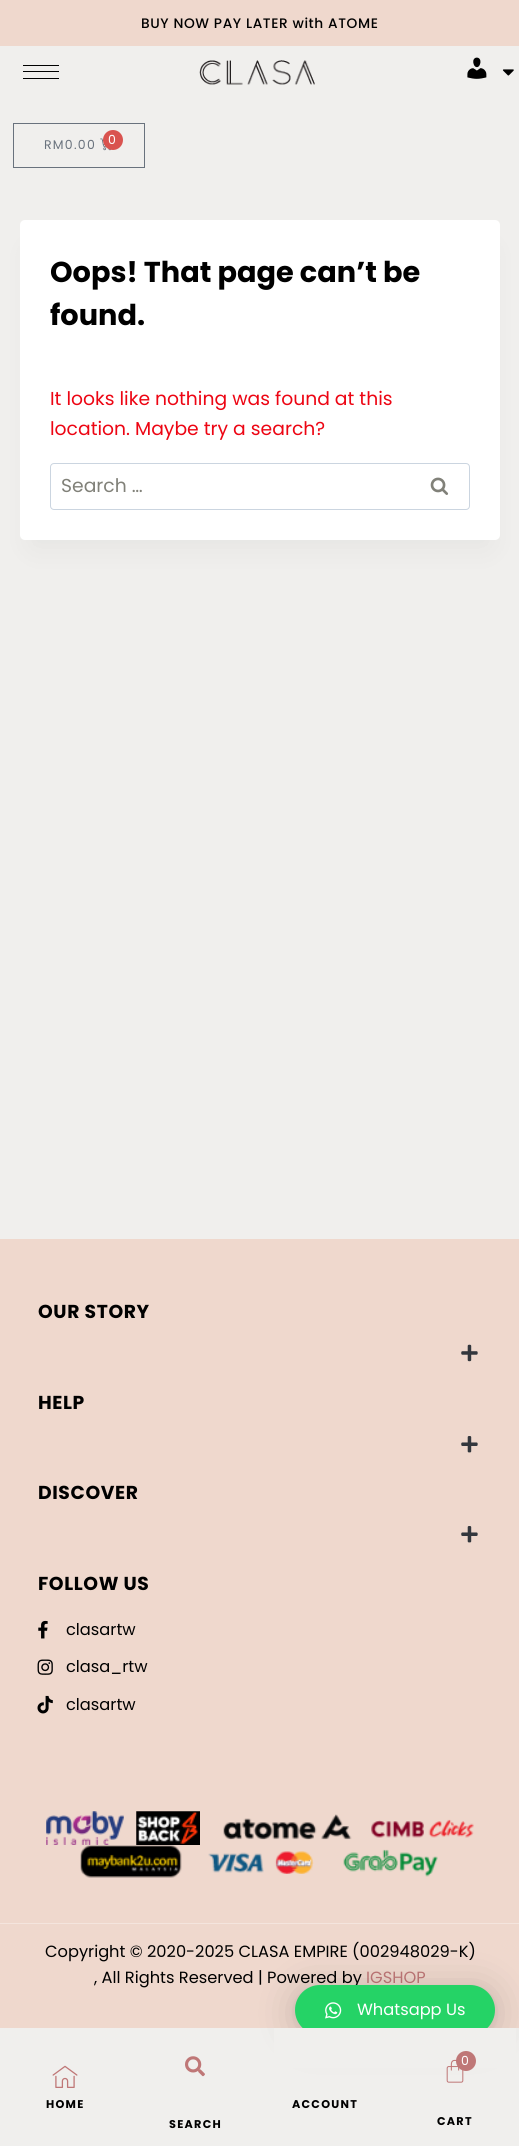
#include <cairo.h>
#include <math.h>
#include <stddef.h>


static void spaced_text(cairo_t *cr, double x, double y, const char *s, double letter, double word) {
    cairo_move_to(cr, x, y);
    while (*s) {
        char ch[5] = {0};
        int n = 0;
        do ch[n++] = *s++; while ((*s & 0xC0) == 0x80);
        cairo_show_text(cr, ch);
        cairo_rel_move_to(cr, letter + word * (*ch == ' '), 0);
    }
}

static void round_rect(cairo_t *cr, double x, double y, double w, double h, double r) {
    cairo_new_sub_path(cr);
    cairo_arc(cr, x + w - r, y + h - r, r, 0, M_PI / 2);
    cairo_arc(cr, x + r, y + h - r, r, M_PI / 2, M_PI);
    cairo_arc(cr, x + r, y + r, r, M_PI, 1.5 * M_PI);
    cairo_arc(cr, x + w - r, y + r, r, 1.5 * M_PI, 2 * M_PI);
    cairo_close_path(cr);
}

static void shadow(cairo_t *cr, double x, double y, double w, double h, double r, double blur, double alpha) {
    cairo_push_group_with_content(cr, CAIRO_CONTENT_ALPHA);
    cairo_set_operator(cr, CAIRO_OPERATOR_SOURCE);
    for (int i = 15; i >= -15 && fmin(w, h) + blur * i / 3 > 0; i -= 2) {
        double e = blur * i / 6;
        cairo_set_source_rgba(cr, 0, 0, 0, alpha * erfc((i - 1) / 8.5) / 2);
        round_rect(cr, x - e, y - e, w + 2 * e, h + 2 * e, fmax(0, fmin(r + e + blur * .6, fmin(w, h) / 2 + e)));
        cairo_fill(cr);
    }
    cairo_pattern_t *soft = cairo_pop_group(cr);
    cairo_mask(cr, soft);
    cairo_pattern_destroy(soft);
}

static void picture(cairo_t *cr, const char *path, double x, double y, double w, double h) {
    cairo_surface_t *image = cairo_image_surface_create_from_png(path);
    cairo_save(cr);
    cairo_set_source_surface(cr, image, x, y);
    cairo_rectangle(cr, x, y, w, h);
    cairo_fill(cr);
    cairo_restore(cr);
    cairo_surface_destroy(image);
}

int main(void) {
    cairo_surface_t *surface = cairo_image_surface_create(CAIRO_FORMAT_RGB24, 519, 2146);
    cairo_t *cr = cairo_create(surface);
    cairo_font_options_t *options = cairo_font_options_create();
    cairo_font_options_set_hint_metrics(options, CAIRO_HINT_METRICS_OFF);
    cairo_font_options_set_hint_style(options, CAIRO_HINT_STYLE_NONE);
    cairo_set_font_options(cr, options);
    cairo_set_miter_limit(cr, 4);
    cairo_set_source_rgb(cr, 0.941, 0.937, 0.929);
    cairo_paint(cr);
    cairo_set_source_rgb(cr, 0.937, 0.847, 0.804);
    cairo_rectangle(cr, 0, 0, 519, 46);
    cairo_fill(cr);
    cairo_select_font_face(cr, "Poppins Medium", CAIRO_FONT_SLANT_NORMAL, CAIRO_FONT_WEIGHT_NORMAL);
    cairo_set_font_size(cr, 13.75);
    cairo_set_source_rgb(cr, 0, 0, 0);
    spaced_text(cr, 141, 28, "BUY NOW PAY LATER with ATOME", 0.6, 0);
    cairo_rectangle(cr, 23, 65, 36, 1);
    cairo_fill(cr);
    cairo_rectangle(cr, 23, 71, 36, 1);
    cairo_fill(cr);
    cairo_rectangle(cr, 23, 78, 36, 1);
    cairo_fill(cr);
    picture(cr, "img1.png", 199, 60, 116, 25);
    picture(cr, "img2.png", 467, 57, 20, 22);
    picture(cr, "img3.png", 502, 69, 12, 7);
    cairo_rectangle(cr, 13.5, 123.5, 131, 44);
    cairo_set_source_rgb(cr, 0.412, 0.447, 0.49);
    cairo_set_line_width(cr, 1);
    cairo_stroke(cr);
    cairo_select_font_face(cr, "Poppins", CAIRO_FONT_SLANT_NORMAL, CAIRO_FONT_WEIGHT_NORMAL);
    cairo_set_font_size(cr, 12.5);
    spaced_text(cr, 44, 149, "RM0.00", 1.25, 0);
    picture(cr, "img4.png", 100, 138, 12, 13);
    cairo_set_source_rgb(cr, 0.851, 0.325, 0.31);
    cairo_arc(cr, 113, 140, 10, 0, 2 * M_PI);
    cairo_fill(cr);
    cairo_set_source_rgb(cr, 1, 1, 1);
    spaced_text(cr, 108, 144, "0", 1.25, 0);
    cairo_set_source_rgb(cr, 0, 0, 0);
    shadow(cr, 33, 251, 455, 295, 0, 15.5, 0.05);
    cairo_set_source_rgb(cr, 1, 1, 1);
    round_rect(cr, 20, 220, 480, 320, 5);
    cairo_fill(cr);
    cairo_select_font_face(cr, "Poppins", CAIRO_FONT_SLANT_NORMAL, CAIRO_FONT_WEIGHT_BOLD);
    cairo_set_font_size(cr, 28.75);
    cairo_set_source_rgb(cr, 0, 0, 0);
    cairo_move_to(cr, 50, 282);
    cairo_show_text(cr, "Oops! That page can’t be");
    cairo_move_to(cr, 50, 325);
    cairo_show_text(cr, "found.");
    cairo_select_font_face(cr, "Poppins", CAIRO_FONT_SLANT_NORMAL, CAIRO_FONT_WEIGHT_NORMAL);
    cairo_set_font_size(cr, 18.75);
    cairo_set_source_rgb(cr, 0.929, 0.02, 0.078);
    cairo_move_to(cr, 50, 405);
    cairo_show_text(cr, "It looks like nothing was found at this");
    cairo_move_to(cr, 50, 435);
    cairo_show_text(cr, "location. Maybe try a search?");
    round_rect(cr, 50.5, 463.5, 419, 46, 3.5);
    cairo_set_source_rgb(cr, 0.796, 0.835, 0.878);
    cairo_stroke(cr);
    cairo_set_source_rgb(cr, 0.506, 0.506, 0.475);
    cairo_move_to(cr, 61, 492);
    cairo_show_text(cr, "Search …");
    picture(cr, "img5.png", 430, 477, 19, 18);
    cairo_set_source_rgb(cr, 0.937, 0.847, 0.804);
    cairo_rectangle(cr, 0, 1239, 519, 789);
    cairo_fill(cr);
    cairo_select_font_face(cr, "Poppins", CAIRO_FONT_SLANT_NORMAL, CAIRO_FONT_WEIGHT_BOLD);
    cairo_set_source_rgb(cr, 0, 0, 0);
    spaced_text(cr, 38, 1318, "OUR STORY", 0.6, 0);
    picture(cr, "img6.png", 461, 1344, 17, 18);
    spaced_text(cr, 38, 1409, "HELP", 0.6, 0);
    picture(cr, "img7.png", 461, 1436, 17, 17);
    spaced_text(cr, 38, 1499, "DISCOVER", 0.6, 0);
    picture(cr, "img7.png", 461, 1526, 17, 17);
    spaced_text(cr, 38, 1590, "FOLLOW US", 0.6, 0);
    picture(cr, "img8.png", 38, 1620, 10, 19);
    cairo_select_font_face(cr, "Poppins", CAIRO_FONT_SLANT_NORMAL, CAIRO_FONT_WEIGHT_NORMAL);
    cairo_set_font_size(cr, 16.25);
    cairo_move_to(cr, 66, 1635);
    cairo_show_text(cr, "clasartw");
    picture(cr, "img9.png", 37, 1659, 16, 16);
    cairo_move_to(cr, 66, 1672);
    cairo_show_text(cr, "clasa_rtw");
    picture(cr, "img10.png", 37, 1695, 16, 19);
    cairo_move_to(cr, 66, 1710);
    cairo_show_text(cr, "clasartw");
    picture(cr, "img11.png", 46, 1811, 78, 34);
    picture(cr, "img12.png", 136, 1811, 64, 34);
    picture(cr, "img13.png", 223, 1814, 129, 26);
    picture(cr, "img14.png", 371, 1819, 103, 19);
    picture(cr, "img15.png", 80, 1845, 102, 33);
    picture(cr, "img16.png", 208, 1851, 106, 23);
    picture(cr, "img17.png", 343, 1849, 95, 28);
    cairo_set_source_rgb(cr, 0.957, 0.898, 0.871);
    cairo_rectangle(cr, 0, 1923, 519, 1);
    cairo_fill(cr);
    cairo_set_source_rgb(cr, 0, 0, 0);
    cairo_move_to(cr, 45, 1957);
    cairo_show_text(cr, "Copyright © 2020-2025 CLASA EMPIRE (002948029-K)");
    cairo_move_to(cr, 94, 1983);
    cairo_show_text(cr, ", All Rights Reserved | Powered by");
    cairo_set_source_rgb(cr, 0.749, 0.467, 0.467);
    cairo_move_to(cr, 366, 1983);
    cairo_show_text(cr, "IGSHOP");
    cairo_set_source_rgb(cr, 0, 0, 0);
    shadow(cr, 295, 1988, 200, 50, 25, 20, 0.16);
    shadow(cr, 295, 1986, 200, 50, 25, 4, 0.06);
    cairo_set_source_rgb(cr, 0.145, 0.827, 0.4);
    round_rect(cr, 295, 1985, 200, 50, 25);
    cairo_fill(cr);
    cairo_set_source_rgb(cr, 0.941, 0.937, 0.929);
    cairo_rectangle(cr, 274, 2028, 242, 40);
    cairo_fill(cr);
    picture(cr, "img18.png", 52, 2065, 26, 23);
    cairo_select_font_face(cr, "Poppins", CAIRO_FONT_SLANT_NORMAL, CAIRO_FONT_WEIGHT_BOLD);
    cairo_set_font_size(cr, 11.25);
    cairo_set_source_rgb(cr, 0, 0, 0);
    spaced_text(cr, 46, 2108, "HOME", 1.25, 0);
    spaced_text(cr, 292, 2108, "ACCOUNT", 1.25, 0);
    picture(cr, "img19.png", 446, 2059, 18, 24);
    cairo_set_source_rgb(cr, 0.749, 0.467, 0.467);
    cairo_arc(cr, 466, 2061, 10, 0, 2 * M_PI);
    cairo_fill(cr);
    cairo_select_font_face(cr, "Poppins", CAIRO_FONT_SLANT_NORMAL, CAIRO_FONT_WEIGHT_NORMAL);
    cairo_set_font_size(cr, 12.5);
    cairo_set_source_rgb(cr, 1, 1, 1);
    spaced_text(cr, 461, 2065, "0", 1.25, 0);
    cairo_select_font_face(cr, "Poppins", CAIRO_FONT_SLANT_NORMAL, CAIRO_FONT_WEIGHT_BOLD);
    cairo_set_font_size(cr, 11.25);
    cairo_set_source_rgb(cr, 0, 0, 0);
    spaced_text(cr, 437, 2125, "CART", 1.25, 0);
    picture(cr, "img20.png", 185, 2056, 20, 21);
    spaced_text(cr, 169, 2128, "SEARCH", 1.25, 0);
    picture(cr, "img21.png", 325, 2002, 17, 17);
    cairo_select_font_face(cr, "Poppins", CAIRO_FONT_SLANT_NORMAL, CAIRO_FONT_WEIGHT_NORMAL);
    cairo_set_font_size(cr, 16.25);
    cairo_set_source_rgb(cr, 1, 1, 1);
    cairo_move_to(cr, 357, 2015);
    cairo_show_text(cr, "Whatsapp Us");
    cairo_surface_write_to_png(surface, "page.png");
    cairo_font_options_destroy(options);
    cairo_destroy(cr);
    cairo_surface_destroy(surface);
    return 0;
}
